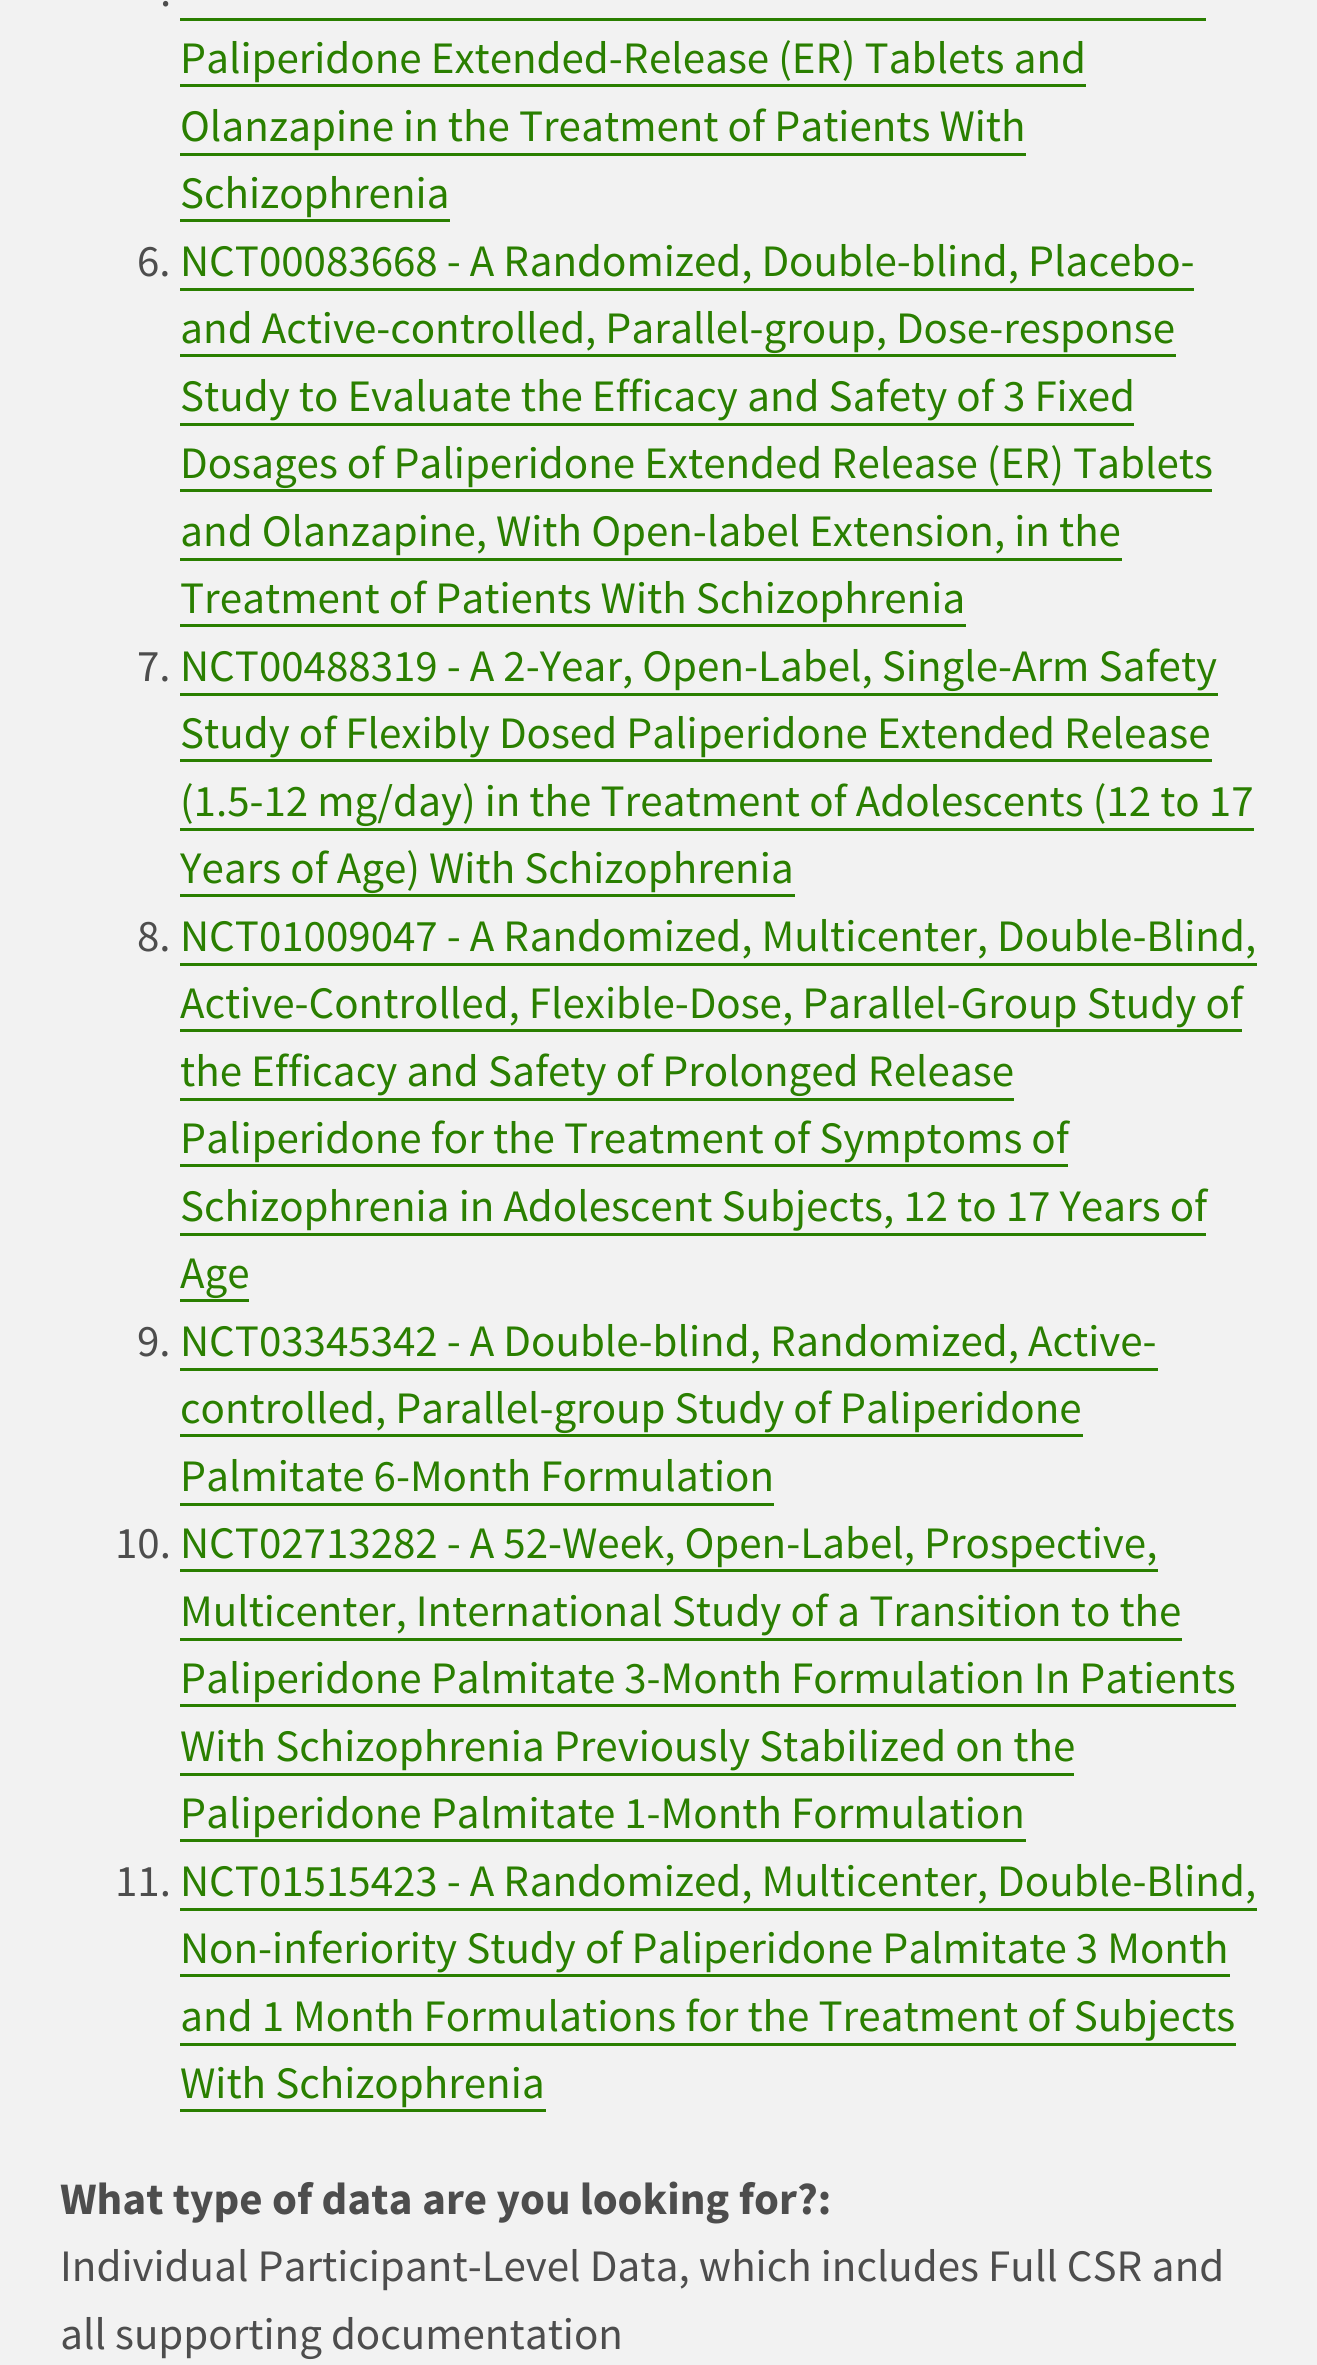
#include <cairo.h>
#include <math.h>
#include <stddef.h>


int main(void) {
    cairo_surface_t *surface = cairo_image_surface_create(CAIRO_FORMAT_RGB24, 1317, 2365);
    cairo_t *cr = cairo_create(surface);
    cairo_font_options_t *options = cairo_font_options_create();
    cairo_font_options_set_hint_metrics(options, CAIRO_HINT_METRICS_OFF);
    cairo_font_options_set_hint_style(options, CAIRO_HINT_STYLE_NONE);
    cairo_set_font_options(cr, options);
    cairo_set_miter_limit(cr, 4);
    cairo_set_source_rgb(cr, 0.949, 0.949, 0.949);
    cairo_paint(cr);
    cairo_select_font_face(cr, "Source Sans Pro", CAIRO_FONT_SLANT_NORMAL, CAIRO_FONT_WEIGHT_NORMAL);
    cairo_set_font_size(cr, 45);
    cairo_set_source_rgb(cr, 0.302, 0.302, 0.302);
    cairo_move_to(cr, 160, 6);
    cairo_show_text(cr, ".");
    cairo_set_source_rgb(cr, 0.165, 0.498, 0);
    cairo_move_to(cr, 180, 73);
    cairo_show_text(cr, "Paliperidone Extended-Release (ER) Tablets and");
    cairo_rectangle(cr, 180, 18, 1026, 3);
    cairo_fill(cr);
    cairo_rectangle(cr, 180, 84, 906, 3);
    cairo_fill(cr);
    cairo_move_to(cr, 180, 141);
    cairo_show_text(cr, "Olanzapine in the Treatment of Patients With");
    cairo_rectangle(cr, 180, 153, 846, 3);
    cairo_fill(cr);
    cairo_move_to(cr, 180, 208);
    cairo_show_text(cr, "Schizophrenia");
    cairo_rectangle(cr, 180, 219, 270, 3);
    cairo_fill(cr);
    cairo_set_source_rgb(cr, 0.302, 0.302, 0.302);
    cairo_move_to(cr, 137, 276);
    cairo_show_text(cr, "6.");
    cairo_set_source_rgb(cr, 0.165, 0.498, 0);
    cairo_move_to(cr, 180, 276);
    cairo_show_text(cr, "NCT00083668 - A Randomized, Double-blind, Placebo-");
    cairo_rectangle(cr, 180, 288, 1014, 3);
    cairo_fill(cr);
    cairo_move_to(cr, 180, 343);
    cairo_show_text(cr, "and Active-controlled, Parallel-group, Dose-response");
    cairo_rectangle(cr, 180, 354, 996, 3);
    cairo_fill(cr);
    cairo_move_to(cr, 180, 411);
    cairo_show_text(cr, "Study to Evaluate the Efficacy and Safety of 3 Fixed");
    cairo_rectangle(cr, 180, 423, 954, 3);
    cairo_fill(cr);
    cairo_move_to(cr, 180, 478);
    cairo_show_text(cr, "Dosages of Paliperidone Extended Release (ER) Tablets");
    cairo_rectangle(cr, 180, 489, 1032, 3);
    cairo_fill(cr);
    cairo_move_to(cr, 180, 546);
    cairo_show_text(cr, "and Olanzapine, With Open-label Extension, in the");
    cairo_rectangle(cr, 180, 558, 942, 3);
    cairo_fill(cr);
    cairo_move_to(cr, 180, 613);
    cairo_show_text(cr, "Treatment of Patients With Schizophrenia");
    cairo_rectangle(cr, 180, 624, 786, 3);
    cairo_fill(cr);
    cairo_set_source_rgb(cr, 0.302, 0.302, 0.302);
    cairo_move_to(cr, 137, 681);
    cairo_show_text(cr, "7.");
    cairo_set_source_rgb(cr, 0.165, 0.498, 0);
    cairo_move_to(cr, 180, 681);
    cairo_show_text(cr, "NCT00488319 - A 2-Year, Open-Label, Single-Arm Safety");
    cairo_rectangle(cr, 180, 693, 1038, 3);
    cairo_fill(cr);
    cairo_move_to(cr, 180, 748);
    cairo_show_text(cr, "Study of Flexibly Dosed Paliperidone Extended Release");
    cairo_rectangle(cr, 180, 759, 1032, 3);
    cairo_fill(cr);
    cairo_move_to(cr, 180, 816);
    cairo_show_text(cr, "(1.5-12 mg/day) in the Treatment of Adolescents (12 to 17");
    cairo_rectangle(cr, 180, 828, 1074, 3);
    cairo_fill(cr);
    cairo_move_to(cr, 180, 883);
    cairo_show_text(cr, "Years of Age) With Schizophrenia");
    cairo_rectangle(cr, 180, 894, 615, 3);
    cairo_fill(cr);
    cairo_set_source_rgb(cr, 0.302, 0.302, 0.302);
    cairo_move_to(cr, 137, 951);
    cairo_show_text(cr, "8.");
    cairo_set_source_rgb(cr, 0.165, 0.498, 0);
    cairo_move_to(cr, 180, 951);
    cairo_show_text(cr, "NCT01009047 - A Randomized, Multicenter, Double-Blind,");
    cairo_rectangle(cr, 180, 963, 1077, 3);
    cairo_fill(cr);
    cairo_move_to(cr, 180, 1018);
    cairo_show_text(cr, "Active-Controlled, Flexible-Dose, Parallel-Group Study of");
    cairo_rectangle(cr, 180, 1029, 1062, 3);
    cairo_fill(cr);
    cairo_move_to(cr, 180, 1086);
    cairo_show_text(cr, "the Efficacy and Safety of Prolonged Release");
    cairo_rectangle(cr, 180, 1098, 834, 3);
    cairo_fill(cr);
    cairo_move_to(cr, 180, 1153);
    cairo_show_text(cr, "Paliperidone for the Treatment of Symptoms of");
    cairo_rectangle(cr, 180, 1164, 888, 3);
    cairo_fill(cr);
    cairo_move_to(cr, 180, 1221);
    cairo_show_text(cr, "Schizophrenia in Adolescent Subjects, 12 to 17 Years of");
    cairo_rectangle(cr, 180, 1233, 1026, 3);
    cairo_fill(cr);
    cairo_move_to(cr, 180, 1288);
    cairo_show_text(cr, "Age");
    cairo_rectangle(cr, 180, 1299, 69, 3);
    cairo_fill(cr);
    cairo_set_source_rgb(cr, 0.302, 0.302, 0.302);
    cairo_move_to(cr, 137, 1356);
    cairo_show_text(cr, "9.");
    cairo_set_source_rgb(cr, 0.165, 0.498, 0);
    cairo_move_to(cr, 180, 1356);
    cairo_show_text(cr, "NCT03345342 - A Double-blind, Randomized, Active-");
    cairo_rectangle(cr, 180, 1368, 978, 3);
    cairo_fill(cr);
    cairo_move_to(cr, 180, 1423);
    cairo_show_text(cr, "controlled, Parallel-group Study of Paliperidone");
    cairo_rectangle(cr, 180, 1434, 903, 3);
    cairo_fill(cr);
    cairo_move_to(cr, 180, 1491);
    cairo_show_text(cr, "Palmitate 6-Month Formulation");
    cairo_rectangle(cr, 180, 1503, 594, 3);
    cairo_fill(cr);
    cairo_set_source_rgb(cr, 0.302, 0.302, 0.302);
    cairo_move_to(cr, 115, 1558);
    cairo_show_text(cr, "10.");
    cairo_set_source_rgb(cr, 0.165, 0.498, 0);
    cairo_move_to(cr, 180, 1558);
    cairo_show_text(cr, "NCT02713282 - A 52-Week, Open-Label, Prospective,");
    cairo_rectangle(cr, 180, 1569, 978, 3);
    cairo_fill(cr);
    cairo_move_to(cr, 180, 1626);
    cairo_show_text(cr, "Multicenter, International Study of a Transition to the");
    cairo_rectangle(cr, 180, 1638, 1002, 3);
    cairo_fill(cr);
    cairo_move_to(cr, 180, 1693);
    cairo_show_text(cr, "Paliperidone Palmitate 3-Month Formulation In Patients");
    cairo_rectangle(cr, 180, 1704, 1056, 3);
    cairo_fill(cr);
    cairo_move_to(cr, 180, 1761);
    cairo_show_text(cr, "With Schizophrenia Previously Stabilized on the");
    cairo_rectangle(cr, 180, 1773, 894, 3);
    cairo_fill(cr);
    cairo_move_to(cr, 180, 1828);
    cairo_show_text(cr, "Paliperidone Palmitate 1-Month Formulation");
    cairo_rectangle(cr, 180, 1839, 846, 3);
    cairo_fill(cr);
    cairo_set_source_rgb(cr, 0.302, 0.302, 0.302);
    cairo_move_to(cr, 115, 1896);
    cairo_show_text(cr, "11.");
    cairo_set_source_rgb(cr, 0.165, 0.498, 0);
    cairo_move_to(cr, 180, 1896);
    cairo_show_text(cr, "NCT01515423 - A Randomized, Multicenter, Double-Blind,");
    cairo_rectangle(cr, 180, 1908, 1077, 3);
    cairo_fill(cr);
    cairo_move_to(cr, 180, 1963);
    cairo_show_text(cr, "Non-inferiority Study of Paliperidone Palmitate 3 Month");
    cairo_rectangle(cr, 180, 1974, 1050, 3);
    cairo_fill(cr);
    cairo_move_to(cr, 180, 2031);
    cairo_show_text(cr, "and 1 Month Formulations for the Treatment of Subjects");
    cairo_rectangle(cr, 180, 2043, 1056, 3);
    cairo_fill(cr);
    cairo_move_to(cr, 180, 2098);
    cairo_show_text(cr, "With Schizophrenia");
    cairo_rectangle(cr, 180, 2109, 366, 3);
    cairo_fill(cr);
    cairo_select_font_face(cr, "Source Sans Pro", CAIRO_FONT_SLANT_NORMAL, CAIRO_FONT_WEIGHT_BOLD);
    cairo_set_source_rgb(cr, 0.302, 0.302, 0.302);
    cairo_move_to(cr, 60, 2214);
    cairo_show_text(cr, "What type of data are you looking for?:");
    cairo_select_font_face(cr, "Source Sans Pro", CAIRO_FONT_SLANT_NORMAL, CAIRO_FONT_WEIGHT_NORMAL);
    cairo_move_to(cr, 60, 2281);
    cairo_show_text(cr, "Individual Participant-Level Data, which includes Full CSR and");
    cairo_move_to(cr, 60, 2349);
    cairo_show_text(cr, "all supporting documentation");
    cairo_surface_write_to_png(surface, "page.png");
    cairo_font_options_destroy(options);
    cairo_destroy(cr);
    cairo_surface_destroy(surface);
    return 0;
}
